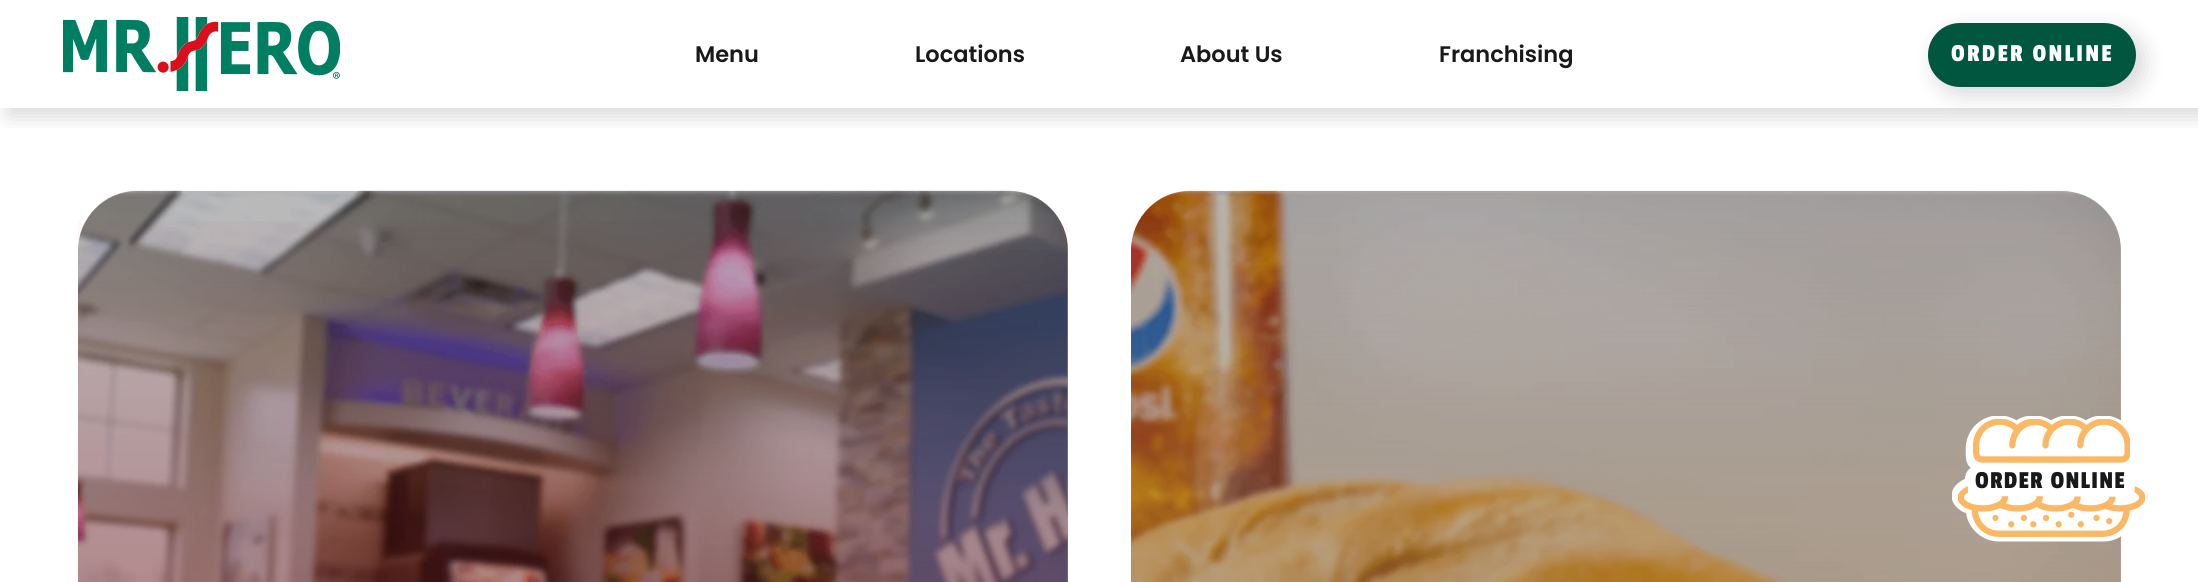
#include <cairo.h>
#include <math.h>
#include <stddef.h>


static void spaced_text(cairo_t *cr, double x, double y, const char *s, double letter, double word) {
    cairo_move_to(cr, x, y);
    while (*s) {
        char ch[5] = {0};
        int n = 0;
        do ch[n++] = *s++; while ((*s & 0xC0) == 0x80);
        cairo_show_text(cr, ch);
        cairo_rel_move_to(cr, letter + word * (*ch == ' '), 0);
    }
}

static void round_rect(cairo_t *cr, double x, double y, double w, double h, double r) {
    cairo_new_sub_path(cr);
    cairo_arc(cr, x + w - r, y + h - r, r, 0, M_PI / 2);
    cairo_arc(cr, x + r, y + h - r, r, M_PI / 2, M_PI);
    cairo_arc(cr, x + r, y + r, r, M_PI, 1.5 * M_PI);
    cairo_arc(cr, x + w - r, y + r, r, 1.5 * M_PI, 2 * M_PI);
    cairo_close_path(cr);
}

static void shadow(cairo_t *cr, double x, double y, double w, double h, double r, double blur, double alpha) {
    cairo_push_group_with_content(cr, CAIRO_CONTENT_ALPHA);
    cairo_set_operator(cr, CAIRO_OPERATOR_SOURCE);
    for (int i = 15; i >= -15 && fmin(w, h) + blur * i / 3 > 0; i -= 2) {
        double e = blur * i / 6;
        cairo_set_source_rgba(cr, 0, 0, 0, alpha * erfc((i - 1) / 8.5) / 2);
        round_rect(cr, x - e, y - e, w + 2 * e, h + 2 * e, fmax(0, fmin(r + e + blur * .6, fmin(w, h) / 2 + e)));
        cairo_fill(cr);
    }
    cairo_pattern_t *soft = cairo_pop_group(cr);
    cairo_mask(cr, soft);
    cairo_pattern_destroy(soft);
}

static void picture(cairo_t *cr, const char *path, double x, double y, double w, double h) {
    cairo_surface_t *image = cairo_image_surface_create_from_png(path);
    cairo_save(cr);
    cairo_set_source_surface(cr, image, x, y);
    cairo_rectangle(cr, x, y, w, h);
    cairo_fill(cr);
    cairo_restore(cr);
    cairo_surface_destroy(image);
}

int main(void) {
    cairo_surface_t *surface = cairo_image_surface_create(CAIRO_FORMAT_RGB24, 2198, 582);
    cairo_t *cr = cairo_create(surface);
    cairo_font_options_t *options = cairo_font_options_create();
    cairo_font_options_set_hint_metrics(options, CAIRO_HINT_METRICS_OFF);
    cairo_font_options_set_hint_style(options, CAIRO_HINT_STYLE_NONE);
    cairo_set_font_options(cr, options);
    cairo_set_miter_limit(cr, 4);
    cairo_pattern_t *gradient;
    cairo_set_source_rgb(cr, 1, 1, 1);
    cairo_paint(cr);
    cairo_save(cr);
    cairo_rectangle(cr, 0, 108, 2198, 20);
    cairo_clip(cr);
    cairo_set_source_rgb(cr, 0, 0, 0);
    shadow(cr, 8, 8, 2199, 108, 0, 11, 0.15);
    cairo_restore(cr);
    picture(cr, "img1.png", 63, 17, 277, 74);
    cairo_select_font_face(cr, "Poppins SemiBold", CAIRO_FONT_SLANT_NORMAL, CAIRO_FONT_WEIGHT_NORMAL);
    cairo_set_font_size(cr, 22.5);
    cairo_set_source_rgb(cr, 0.098, 0.098, 0.098);
    cairo_move_to(cr, 695, 62);
    cairo_show_text(cr, "Menu");
    cairo_move_to(cr, 915, 62);
    cairo_show_text(cr, "Locations");
    cairo_move_to(cr, 1180, 62);
    cairo_show_text(cr, "About Us");
    cairo_move_to(cr, 1439, 62);
    cairo_show_text(cr, "Franchising");
    cairo_set_source_rgb(cr, 0, 0, 0);
    shadow(cr, 1935, 30, 209, 65, 32.5, 11, 0.15);
    cairo_set_source_rgb(cr, 0.004, 0.337, 0.251);
    round_rect(cr, 1928, 23, 208, 64, 32);
    cairo_fill(cr);
    cairo_select_font_face(cr, "Passion One", CAIRO_FONT_SLANT_NORMAL, CAIRO_FONT_WEIGHT_NORMAL);
    cairo_set_font_size(cr, 25.5);
    cairo_set_source_rgb(cr, 1, 1, 1);
    spaced_text(cr, 1951, 61, "ORDER ONLINE", 2.25, 0);
    picture(cr, "img2.png", 78, 190, 990, 392);
    gradient = cairo_pattern_create_linear(573, 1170, 573, 191);
    cairo_pattern_add_color_stop_rgba(gradient, 0, 0.859, 0.055, 0.106, 0.7);
    cairo_pattern_add_color_stop_rgba(gradient, 1, 0.859, 0.055, 0.106, 0);
    cairo_set_source(cr, gradient);
    cairo_pattern_destroy(gradient);
    cairo_rectangle(cr, 78, 221, 990, 361);
    cairo_fill(cr);
    cairo_set_source_rgba(cr, 0.098, 0.098, 0.098, 0.3);
    round_rect(cr, 78, 191, 990, 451, 60);
    cairo_fill(cr);
    picture(cr, "img3.png", 1131, 190, 990, 392);
    gradient = cairo_pattern_create_linear(1626, 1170, 1626, 191);
    cairo_pattern_add_color_stop_rgba(gradient, 0, 0.98, 0.722, 0.396, 0.7);
    cairo_pattern_add_color_stop_rgba(gradient, 1, 0.98, 0.722, 0.396, 0);
    cairo_set_source(cr, gradient);
    cairo_pattern_destroy(gradient);
    cairo_rectangle(cr, 1131, 221, 990, 361);
    cairo_fill(cr);
    cairo_set_source_rgba(cr, 0.098, 0.098, 0.098, 0.3);
    round_rect(cr, 1131, 191, 990, 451, 60);
    cairo_fill(cr);
    picture(cr, "img4.png", 1952, 416, 169, 126);
    picture(cr, "img5.png", 1973, 419, 157, 44);
    cairo_set_source_rgb(cr, 0.098, 0.098, 0.098);
    spaced_text(cr, 1975, 488, "ORDER ONLINE", 1.25, 0);
    picture(cr, "img6.png", 1958, 486, 187, 51);
    cairo_surface_write_to_png(surface, "page.png");
    cairo_font_options_destroy(options);
    cairo_destroy(cr);
    cairo_surface_destroy(surface);
    return 0;
}
